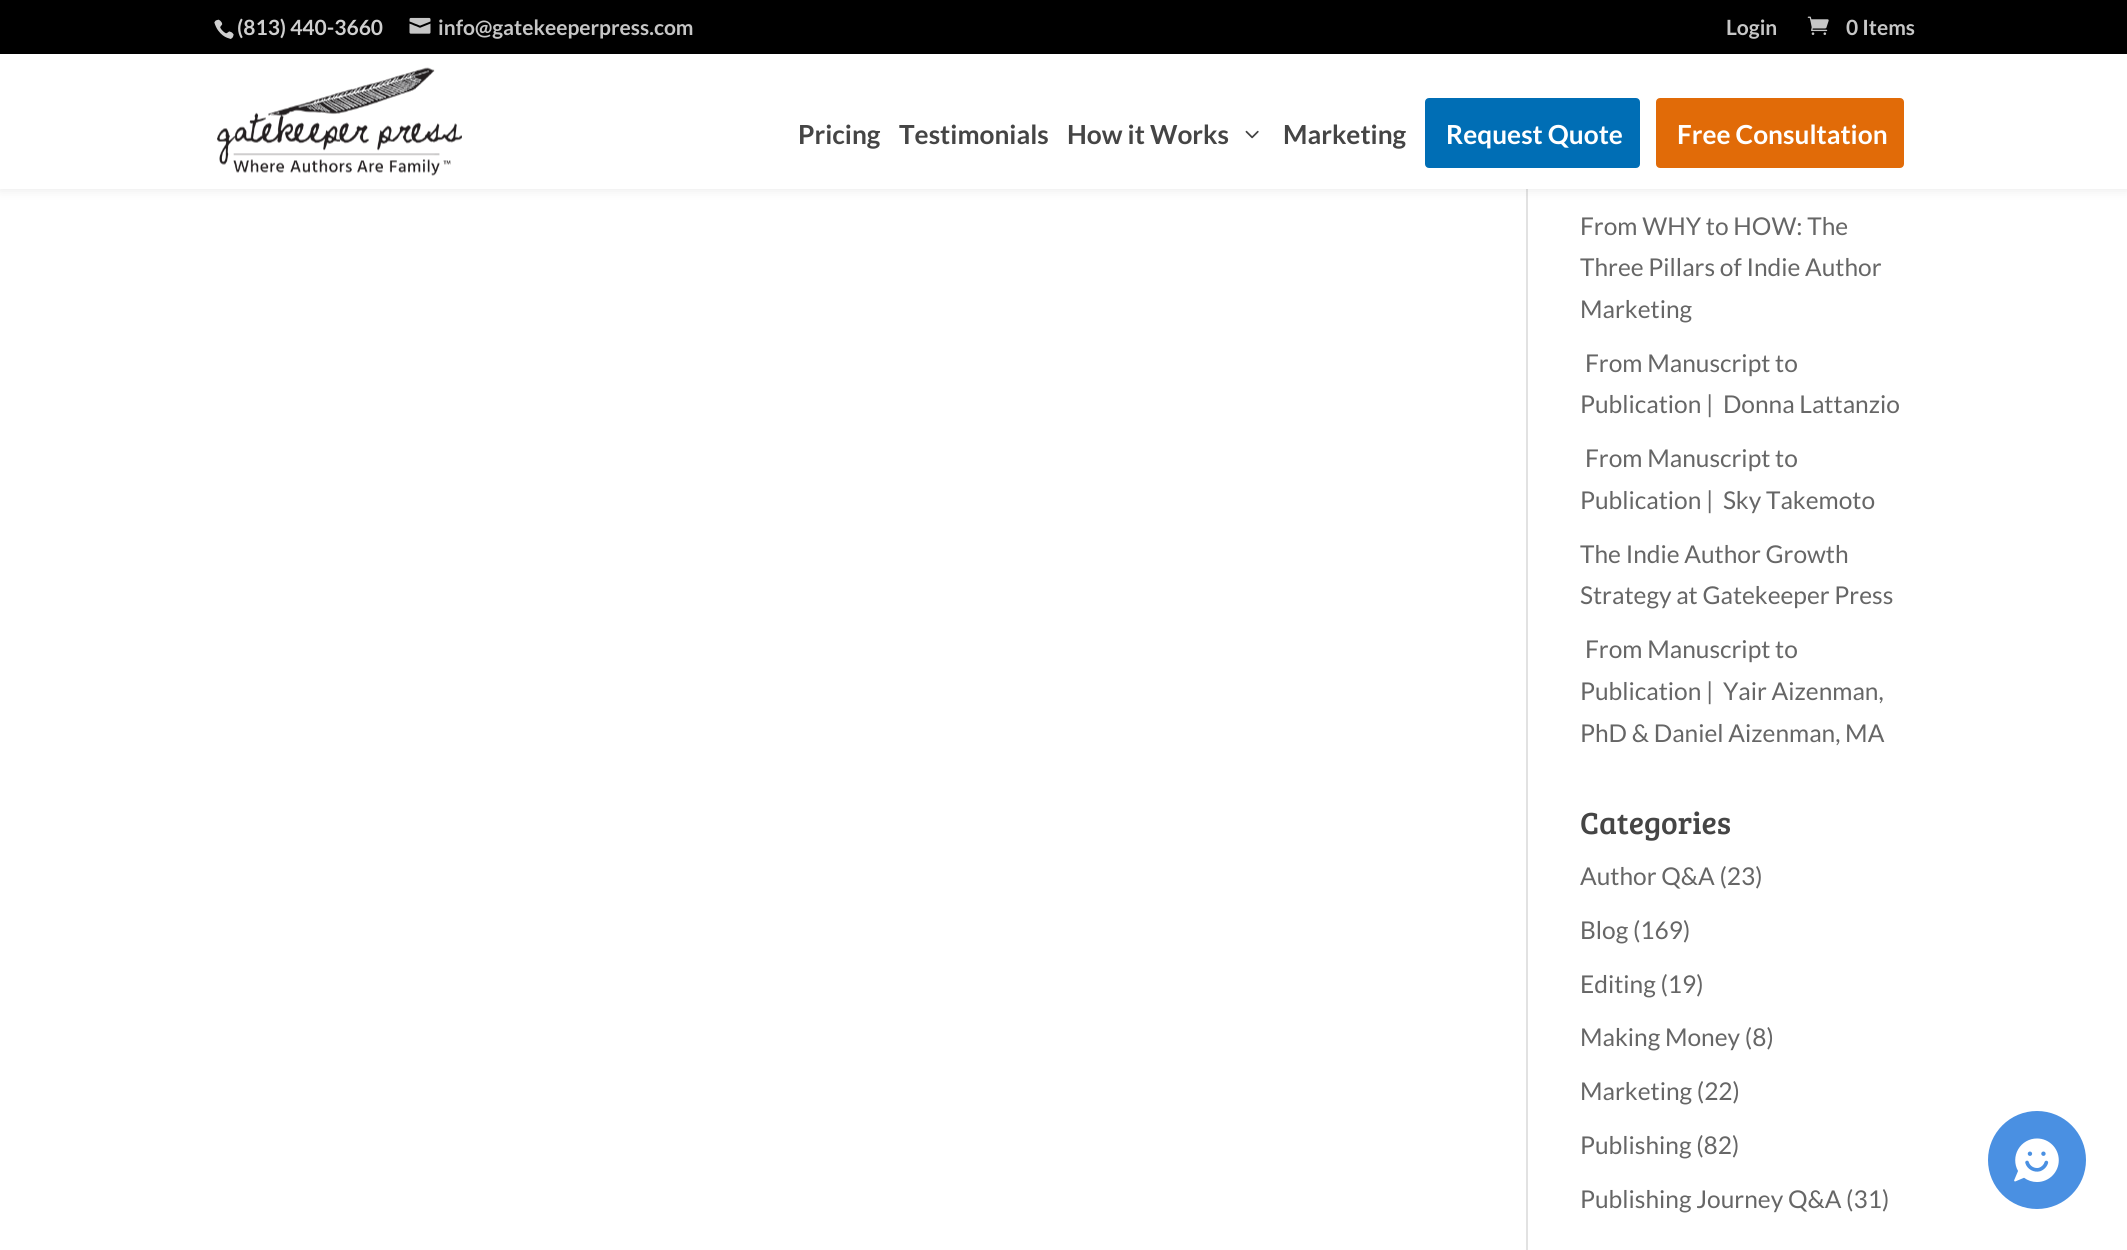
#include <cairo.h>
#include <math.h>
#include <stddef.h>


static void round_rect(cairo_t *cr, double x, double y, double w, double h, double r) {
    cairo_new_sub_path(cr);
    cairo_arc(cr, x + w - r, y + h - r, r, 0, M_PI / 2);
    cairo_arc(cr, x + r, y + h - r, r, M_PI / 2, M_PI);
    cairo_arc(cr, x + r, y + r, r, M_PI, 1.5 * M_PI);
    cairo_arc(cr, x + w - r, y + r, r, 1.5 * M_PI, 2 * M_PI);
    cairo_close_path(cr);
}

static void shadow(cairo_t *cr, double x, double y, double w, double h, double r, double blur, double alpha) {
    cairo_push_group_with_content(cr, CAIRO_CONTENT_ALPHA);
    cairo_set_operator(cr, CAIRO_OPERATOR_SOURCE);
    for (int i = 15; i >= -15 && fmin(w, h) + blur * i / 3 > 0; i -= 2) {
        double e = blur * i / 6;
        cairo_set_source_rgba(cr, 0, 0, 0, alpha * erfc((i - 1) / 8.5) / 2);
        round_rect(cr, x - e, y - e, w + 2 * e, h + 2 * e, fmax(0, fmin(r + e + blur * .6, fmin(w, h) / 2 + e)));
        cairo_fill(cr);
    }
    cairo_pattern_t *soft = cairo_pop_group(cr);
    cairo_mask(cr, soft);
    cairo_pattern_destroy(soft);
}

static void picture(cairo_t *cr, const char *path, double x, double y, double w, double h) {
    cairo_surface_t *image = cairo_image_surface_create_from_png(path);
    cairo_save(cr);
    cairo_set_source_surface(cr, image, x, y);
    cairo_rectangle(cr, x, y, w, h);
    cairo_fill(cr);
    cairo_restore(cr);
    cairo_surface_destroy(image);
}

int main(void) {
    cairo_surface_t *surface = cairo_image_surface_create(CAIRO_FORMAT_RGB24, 2127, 1250);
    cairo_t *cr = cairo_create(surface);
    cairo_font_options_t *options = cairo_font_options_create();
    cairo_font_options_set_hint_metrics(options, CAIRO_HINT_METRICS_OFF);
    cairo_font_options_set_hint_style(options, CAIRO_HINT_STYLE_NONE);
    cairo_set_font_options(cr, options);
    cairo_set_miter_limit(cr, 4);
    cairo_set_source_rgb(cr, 1, 1, 1);
    cairo_paint(cr);
    cairo_set_source_rgb(cr, 0.886, 0.886, 0.886);
    cairo_rectangle(cr, 1526, 189, 2, 1061);
    cairo_fill(cr);
    cairo_set_source_rgb(cr, 0, 0, 0);
    shadow(cr, 0, 54, 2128, 135, 0, 6, 0.1);
    cairo_set_source_rgb(cr, 0, 0, 0);
    cairo_rectangle(cr, 0, 0, 2127, 54);
    cairo_fill(cr);
    picture(cr, "img1.png", 214, 19, 20, 20);
    cairo_select_font_face(cr, "Lato", CAIRO_FONT_SLANT_NORMAL, CAIRO_FONT_WEIGHT_BOLD);
    cairo_set_font_size(cr, 21);
    cairo_set_source_rgb(cr, 0.812, 0.812, 0.812);
    cairo_move_to(cr, 237, 35);
    cairo_show_text(cr, "(813) 440-3660");
    picture(cr, "img2.png", 409, 17, 22, 17);
    cairo_set_source_rgb(cr, 0.776, 0.776, 0.776);
    cairo_move_to(cr, 438, 35);
    cairo_show_text(cr, "info@gatekeeperpress.com");
    cairo_move_to(cr, 1726, 35);
    cairo_show_text(cr, "Login");
    picture(cr, "img3.png", 1807, 16, 22, 19);
    cairo_move_to(cr, 1846, 35);
    cairo_show_text(cr, "0 Items");
    cairo_set_source_rgb(cr, 1, 1, 1);
    cairo_rectangle(cr, 0, 54, 2127, 135);
    cairo_fill(cr);
    picture(cr, "img4.png", 217, 67, 245, 109);
    cairo_set_font_size(cr, 26.25);
    cairo_set_source_rgb(cr, 0.271, 0.271, 0.271);
    cairo_move_to(cr, 798, 144);
    cairo_show_text(cr, "Pricing");
    cairo_move_to(cr, 899, 144);
    cairo_show_text(cr, "Testimonials");
    cairo_move_to(cr, 1067, 144);
    cairo_show_text(cr, "How it Works");
    picture(cr, "img5.png", 1245, 130, 14, 9);
    cairo_move_to(cr, 1283, 144);
    cairo_show_text(cr, "Marketing");
    cairo_set_source_rgb(cr, 0, 0.431, 0.71);
    round_rect(cr, 1427, 100, 211, 66, 2);
    cairo_fill_preserve(cr);
    cairo_set_line_width(cr, 4);
    cairo_stroke(cr);
    cairo_set_source_rgb(cr, 1, 1, 1);
    cairo_move_to(cr, 1446, 144);
    cairo_show_text(cr, "Request Quote");
    cairo_set_source_rgb(cr, 0.882, 0.42, 0.035);
    round_rect(cr, 1658, 100, 244, 66, 2);
    cairo_fill_preserve(cr);
    cairo_stroke(cr);
    cairo_set_source_rgb(cr, 1, 1, 1);
    cairo_move_to(cr, 1677, 144);
    cairo_show_text(cr, "Free Consultation");
    cairo_select_font_face(cr, "Lato", CAIRO_FONT_SLANT_NORMAL, CAIRO_FONT_WEIGHT_NORMAL);
    cairo_set_font_size(cr, 24.5);
    cairo_set_source_rgb(cr, 0.4, 0.4, 0.4);
    cairo_move_to(cr, 1580, 235);
    cairo_show_text(cr, "From WHY to HOW: The");
    cairo_move_to(cr, 1580, 276);
    cairo_show_text(cr, "Three Pillars of Indie Author");
    cairo_move_to(cr, 1580, 318);
    cairo_show_text(cr, "Marketing");
    cairo_move_to(cr, 1585, 372);
    cairo_show_text(cr, "From Manuscript to");
    cairo_move_to(cr, 1580, 413);
    cairo_show_text(cr, "Publication |  Donna Lattanzio");
    cairo_move_to(cr, 1585, 467);
    cairo_show_text(cr, "From Manuscript to");
    cairo_move_to(cr, 1580, 509);
    cairo_show_text(cr, "Publication |  Sky Takemoto");
    cairo_move_to(cr, 1580, 563);
    cairo_show_text(cr, "The Indie Author Growth");
    cairo_move_to(cr, 1580, 604);
    cairo_show_text(cr, "Strategy at Gatekeeper Press");
    cairo_move_to(cr, 1585, 658);
    cairo_show_text(cr, "From Manuscript to");
    cairo_move_to(cr, 1580, 700);
    cairo_show_text(cr, "Publication |  Yair Aizenman,");
    cairo_move_to(cr, 1580, 742);
    cairo_show_text(cr, "PhD & Daniel Aizenman, MA");
    cairo_select_font_face(cr, "Bree Serif", CAIRO_FONT_SLANT_NORMAL, CAIRO_FONT_WEIGHT_NORMAL);
    cairo_set_font_size(cr, 31.5);
    cairo_set_source_rgb(cr, 0.271, 0.271, 0.271);
    cairo_move_to(cr, 1580, 834);
    cairo_show_text(cr, "Categories");
    cairo_select_font_face(cr, "Lato", CAIRO_FONT_SLANT_NORMAL, CAIRO_FONT_WEIGHT_NORMAL);
    cairo_set_font_size(cr, 24.5);
    cairo_set_source_rgb(cr, 0.4, 0.4, 0.4);
    cairo_move_to(cr, 1580, 885);
    cairo_show_text(cr, "Author Q&A (23)");
    cairo_move_to(cr, 1580, 939);
    cairo_show_text(cr, "Blog (169)");
    cairo_move_to(cr, 1580, 993);
    cairo_show_text(cr, "Editing (19)");
    cairo_move_to(cr, 1580, 1046);
    cairo_show_text(cr, "Making Money (8)");
    cairo_move_to(cr, 1580, 1100);
    cairo_show_text(cr, "Marketing (22)");
    cairo_move_to(cr, 1580, 1154);
    cairo_show_text(cr, "Publishing (82)");
    cairo_move_to(cr, 1580, 1208);
    cairo_show_text(cr, "Publishing Journey Q&A (31)");
    cairo_set_source_rgb(cr, 0.29, 0.565, 0.886);
    cairo_new_path(cr);
    cairo_arc(cr, 2037, 1160, 49, 0, 2 * M_PI);
    cairo_fill(cr);
    picture(cr, "img6.png", 2014, 1138, 45, 44);
    cairo_surface_write_to_png(surface, "page.png");
    cairo_font_options_destroy(options);
    cairo_destroy(cr);
    cairo_surface_destroy(surface);
    return 0;
}
